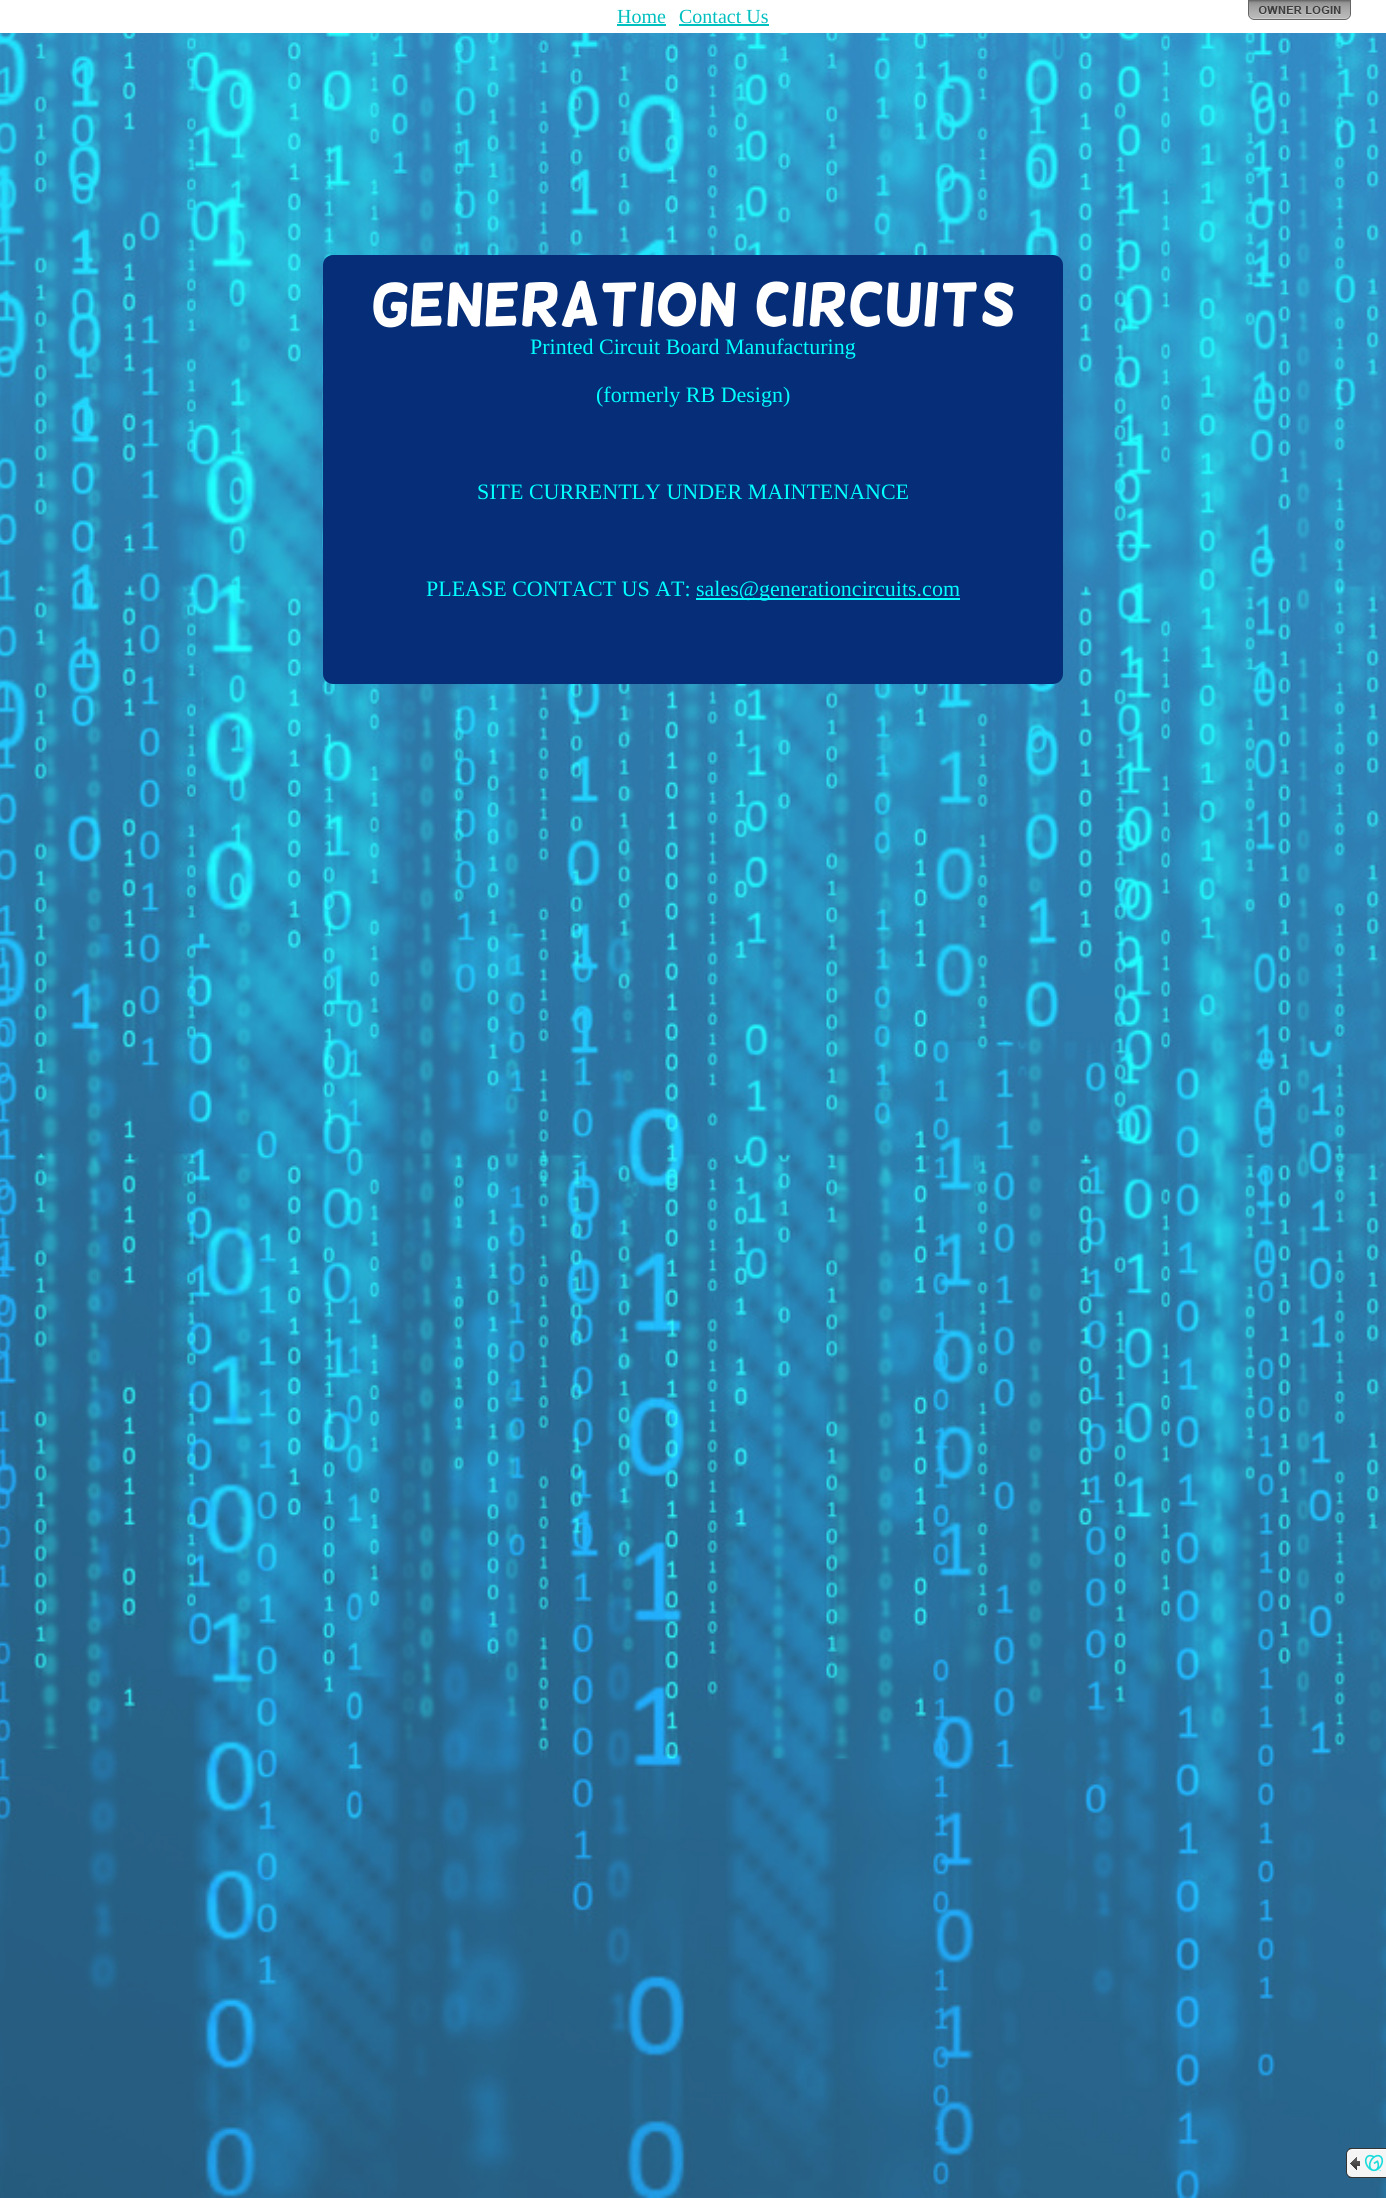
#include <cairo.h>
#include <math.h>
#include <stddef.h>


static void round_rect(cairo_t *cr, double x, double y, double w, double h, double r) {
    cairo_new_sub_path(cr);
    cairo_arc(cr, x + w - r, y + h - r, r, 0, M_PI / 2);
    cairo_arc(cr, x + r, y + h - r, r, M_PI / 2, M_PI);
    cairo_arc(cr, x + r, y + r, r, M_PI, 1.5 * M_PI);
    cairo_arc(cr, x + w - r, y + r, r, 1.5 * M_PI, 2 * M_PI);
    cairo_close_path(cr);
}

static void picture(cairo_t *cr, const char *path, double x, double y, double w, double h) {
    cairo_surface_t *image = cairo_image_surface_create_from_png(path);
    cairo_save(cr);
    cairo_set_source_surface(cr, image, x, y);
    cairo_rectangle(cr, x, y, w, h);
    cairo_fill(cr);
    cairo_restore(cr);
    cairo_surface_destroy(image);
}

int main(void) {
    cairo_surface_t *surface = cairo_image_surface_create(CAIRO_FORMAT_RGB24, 1386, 2198);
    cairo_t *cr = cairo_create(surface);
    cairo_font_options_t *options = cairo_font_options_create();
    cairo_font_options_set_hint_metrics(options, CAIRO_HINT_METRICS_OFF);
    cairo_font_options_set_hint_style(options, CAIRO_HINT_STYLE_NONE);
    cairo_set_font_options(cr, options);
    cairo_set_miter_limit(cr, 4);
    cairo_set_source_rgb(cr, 1, 1, 1);
    cairo_paint(cr);
    cairo_select_font_face(cr, "Liberation Serif", CAIRO_FONT_SLANT_NORMAL, CAIRO_FONT_WEIGHT_NORMAL);
    cairo_set_font_size(cr, 20);
    cairo_set_source_rgb(cr, 0, 0.749, 0.749);
    cairo_move_to(cr, 617, 23);
    cairo_show_text(cr, "Home");
    cairo_rectangle(cr, 617, 24, 49, 2);
    cairo_fill(cr);
    cairo_move_to(cr, 679, 23);
    cairo_show_text(cr, "Contact Us");
    cairo_rectangle(cr, 679, 24, 90, 2);
    cairo_fill(cr);
    picture(cr, "img1.png", 1248, 0, 103, 20);
    picture(cr, "img5.png", 0, 33, 1386, 2165);
    cairo_set_source_rgb(cr, 0.027, 0.18, 0.471);
    round_rect(cr, 323, 255, 740, 429, 10);
    cairo_fill(cr);
    cairo_select_font_face(cr, "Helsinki", CAIRO_FONT_SLANT_NORMAL, CAIRO_FONT_WEIGHT_NORMAL);
    cairo_set_font_size(cr, 60);
    cairo_set_source_rgb(cr, 1, 1, 1);
    cairo_move_to(cr, 371, 325);
    cairo_show_text(cr, "Generation Circuits");
    cairo_select_font_face(cr, "Liberation Serif", CAIRO_FONT_SLANT_NORMAL, CAIRO_FONT_WEIGHT_NORMAL);
    cairo_set_font_size(cr, 22);
    cairo_set_source_rgb(cr, 0, 1, 1);
    cairo_move_to(cr, 530, 354);
    cairo_show_text(cr, "Printed Circuit Board Manufacturing");
    cairo_move_to(cr, 596, 402);
    cairo_show_text(cr, "(formerly RB Design)");
    cairo_move_to(cr, 477, 499);
    cairo_show_text(cr, "SITE CURRENTLY UNDER MAINTENANCE");
    cairo_move_to(cr, 426, 596);
    cairo_show_text(cr, "PLEASE CONTACT US AT:");
    cairo_rectangle(cr, 696, 598, 264, 2);
    cairo_fill(cr);
    cairo_move_to(cr, 696, 596);
    cairo_show_text(cr, "sales@generationcircuits.com");
    picture(cr, "img2.png", 1349, 2148, 37, 30);
    picture(cr, "img3.png", 1346, 2149, 14, 28);
    picture(cr, "img4.png", 1364, 2154, 20, 18);
    cairo_surface_write_to_png(surface, "page.png");
    cairo_font_options_destroy(options);
    cairo_destroy(cr);
    cairo_surface_destroy(surface);
    return 0;
}
